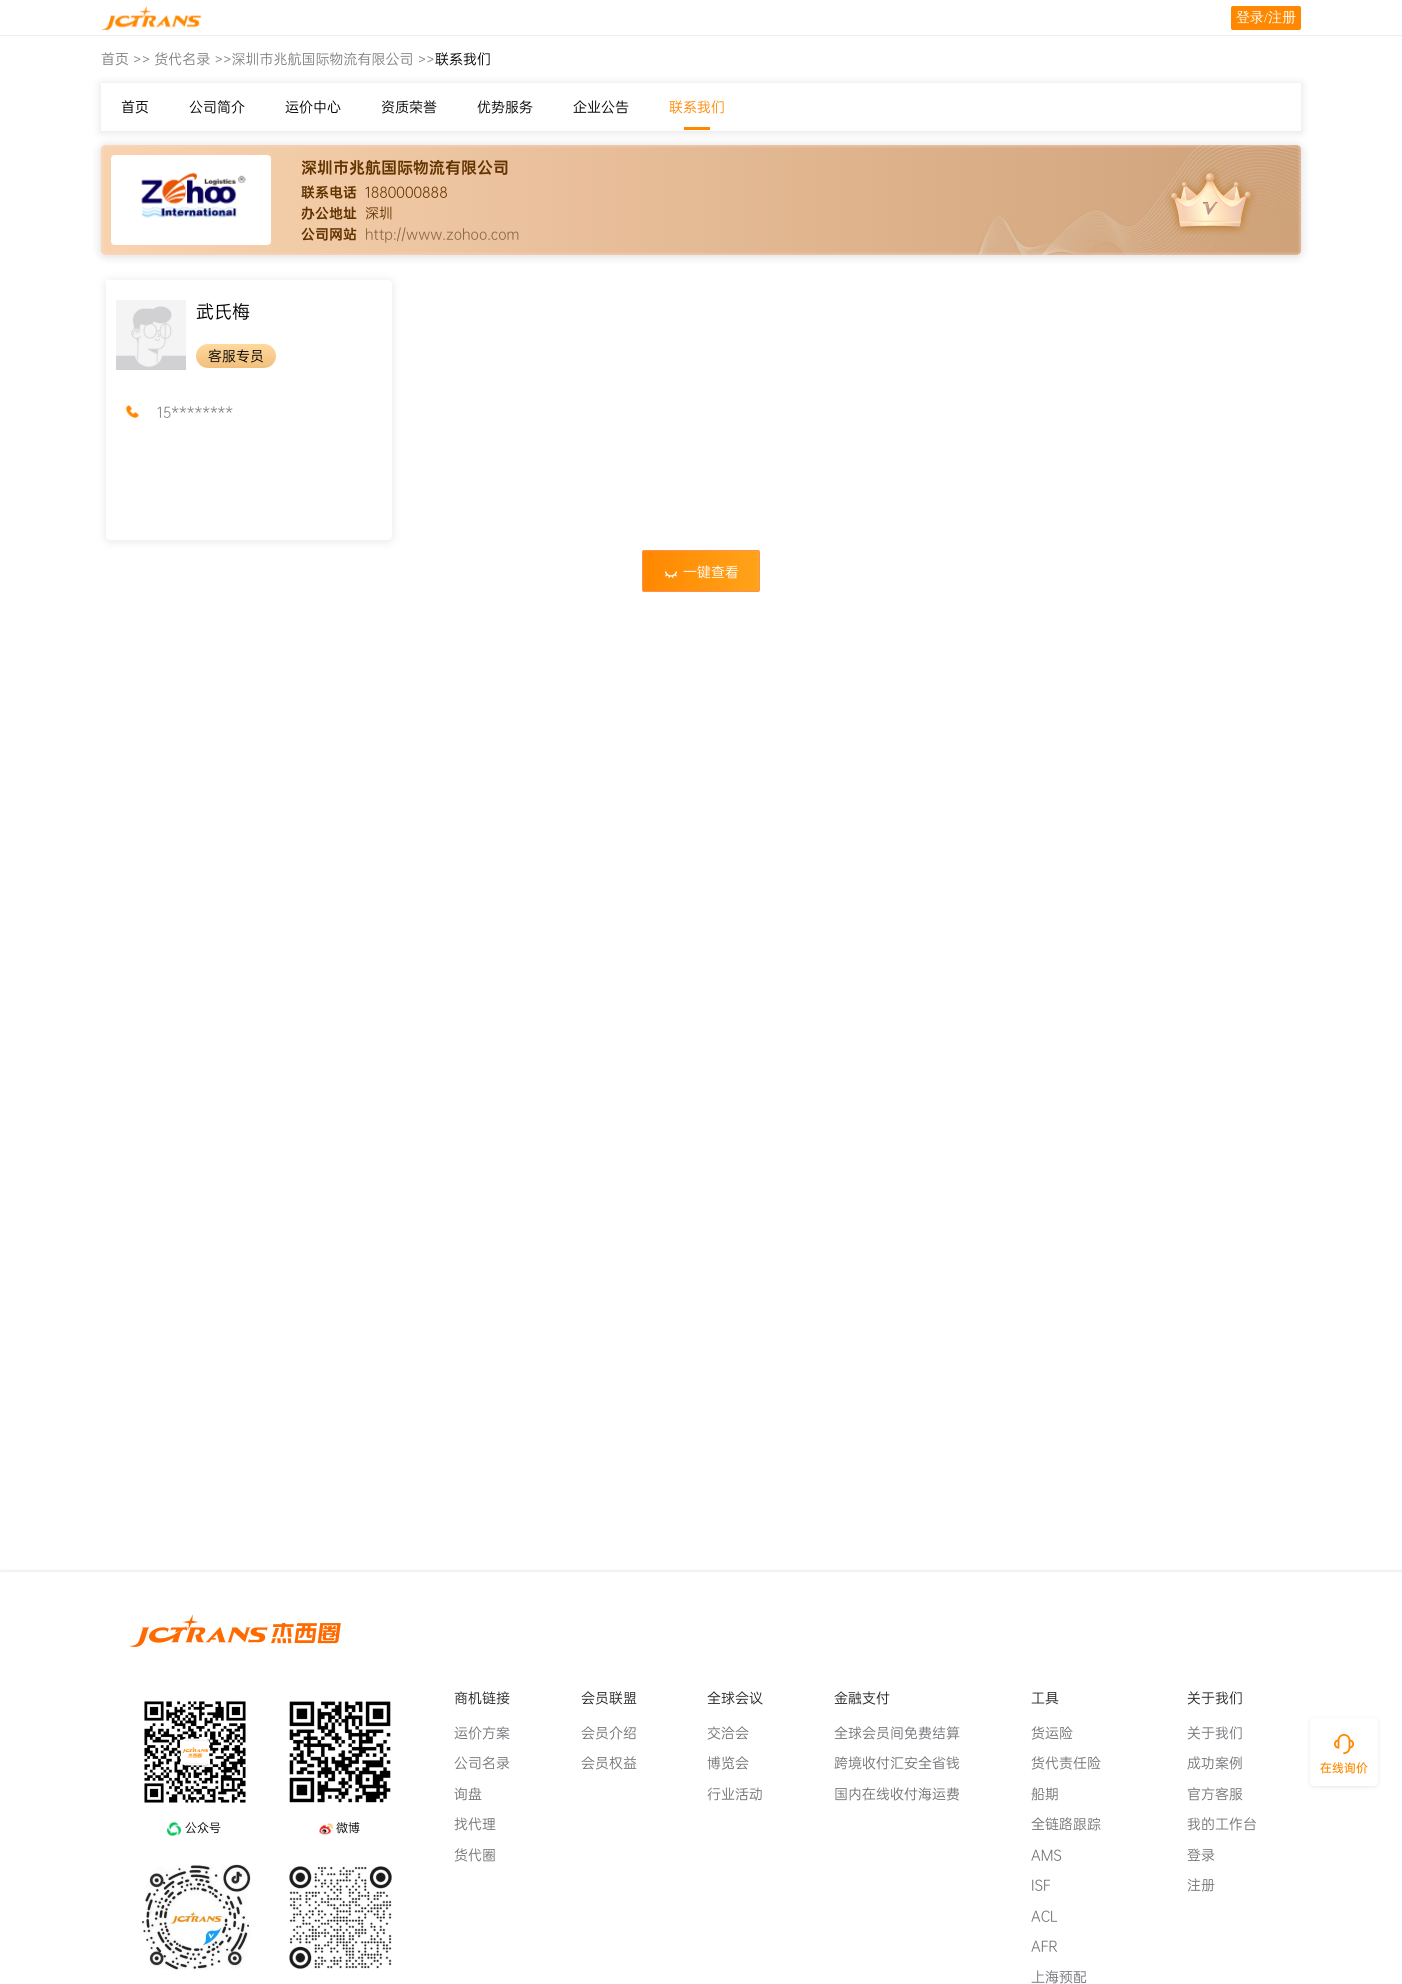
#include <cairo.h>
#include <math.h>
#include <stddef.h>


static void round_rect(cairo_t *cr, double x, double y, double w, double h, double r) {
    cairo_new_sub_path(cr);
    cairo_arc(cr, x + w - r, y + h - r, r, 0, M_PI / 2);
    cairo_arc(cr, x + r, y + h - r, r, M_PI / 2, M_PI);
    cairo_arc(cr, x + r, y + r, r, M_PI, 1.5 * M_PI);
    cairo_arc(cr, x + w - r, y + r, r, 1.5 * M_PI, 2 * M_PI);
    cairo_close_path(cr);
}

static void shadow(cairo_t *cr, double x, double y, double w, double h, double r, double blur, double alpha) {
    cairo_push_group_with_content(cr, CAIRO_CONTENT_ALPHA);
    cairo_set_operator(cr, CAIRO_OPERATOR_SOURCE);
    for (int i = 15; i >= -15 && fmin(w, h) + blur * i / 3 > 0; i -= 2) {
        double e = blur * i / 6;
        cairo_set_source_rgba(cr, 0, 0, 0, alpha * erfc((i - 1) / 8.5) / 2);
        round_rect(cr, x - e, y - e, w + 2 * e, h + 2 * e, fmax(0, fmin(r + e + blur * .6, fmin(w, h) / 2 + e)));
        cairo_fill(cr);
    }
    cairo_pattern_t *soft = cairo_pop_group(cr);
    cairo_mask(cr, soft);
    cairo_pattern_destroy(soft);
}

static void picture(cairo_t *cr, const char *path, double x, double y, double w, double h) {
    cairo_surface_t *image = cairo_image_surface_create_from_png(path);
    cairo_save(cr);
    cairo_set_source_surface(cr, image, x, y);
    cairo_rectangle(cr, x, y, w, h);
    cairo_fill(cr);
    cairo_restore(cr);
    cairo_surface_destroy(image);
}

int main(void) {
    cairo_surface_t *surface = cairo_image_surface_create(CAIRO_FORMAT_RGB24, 1402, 1984);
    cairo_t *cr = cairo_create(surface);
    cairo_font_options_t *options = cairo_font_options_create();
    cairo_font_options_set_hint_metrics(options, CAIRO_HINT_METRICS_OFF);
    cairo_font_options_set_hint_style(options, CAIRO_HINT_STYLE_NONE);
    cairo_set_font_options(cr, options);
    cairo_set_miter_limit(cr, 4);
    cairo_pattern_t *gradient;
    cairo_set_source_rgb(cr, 1, 1, 1);
    cairo_paint(cr);
    cairo_rectangle(cr, -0.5, -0.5, 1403, 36);
    cairo_set_source_rgb(cr, 0.929, 0.929, 0.929);
    cairo_set_line_width(cr, 1);
    cairo_stroke(cr);
    picture(cr, "img1.png", 101, 6, 100, 24);
    cairo_set_source_rgb(cr, 1, 0.533, 0);
    round_rect(cr, 1231, 6, 70, 24, 2);
    cairo_fill(cr);
    cairo_select_font_face(cr, "WenQuanYi Zen Hei Medium", CAIRO_FONT_SLANT_NORMAL, CAIRO_FONT_WEIGHT_NORMAL);
    cairo_set_font_size(cr, 14);
    cairo_set_source_rgb(cr, 1, 1, 1);
    cairo_move_to(cr, 1236, 22);
    cairo_show_text(cr, "登录");
    cairo_select_font_face(cr, "Liberation Serif", CAIRO_FONT_SLANT_NORMAL, CAIRO_FONT_WEIGHT_NORMAL);
    cairo_move_to(cr, 1264, 22);
    cairo_show_text(cr, "/");
    cairo_select_font_face(cr, "WenQuanYi Zen Hei Medium", CAIRO_FONT_SLANT_NORMAL, CAIRO_FONT_WEIGHT_NORMAL);
    cairo_move_to(cr, 1268, 22);
    cairo_show_text(cr, "注册");
    cairo_select_font_face(cr, "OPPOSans", CAIRO_FONT_SLANT_NORMAL, CAIRO_FONT_WEIGHT_NORMAL);
    cairo_set_source_rgb(cr, 0.502, 0.502, 0.502);
    cairo_move_to(cr, 101, 64);
    cairo_show_text(cr, "首页 >> 货代名录 >>深圳市兆航国际物流有限公司 >>");
    cairo_set_source_rgb(cr, 0, 0, 0);
    cairo_move_to(cr, 435, 64);
    cairo_show_text(cr, "联系我们");
    cairo_set_source_rgb(cr, 0, 0, 0);
    shadow(cr, 101, 146, 1200, 110, 4, 5, 0.15);
    picture(cr, "img2.png", 101, 145, 1200, 110);
    cairo_save(cr);
    cairo_set_fill_rule(cr, CAIRO_FILL_RULE_EVEN_ODD);
    cairo_new_path(cr);
    cairo_move_to(cr, 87, 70);
    cairo_line_to(cr, 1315, 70);
    cairo_line_to(cr, 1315, 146);
    cairo_line_to(cr, 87, 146);
    cairo_close_path(cr);
    cairo_move_to(cr, 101, 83);
    cairo_line_to(cr, 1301, 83);
    cairo_line_to(cr, 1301, 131);
    cairo_line_to(cr, 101, 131);
    cairo_close_path(cr);
    cairo_clip(cr);
    shadow(cr, 100, 83, 1202, 50, 0, 4, 0.1);
    cairo_restore(cr);
    cairo_set_source_rgb(cr, 0, 0, 0);
    cairo_move_to(cr, 121, 112);
    cairo_show_text(cr, "首页");
    cairo_move_to(cr, 189, 112);
    cairo_show_text(cr, "公司简介");
    cairo_move_to(cr, 285, 112);
    cairo_show_text(cr, "运价中心");
    cairo_move_to(cr, 381, 112);
    cairo_show_text(cr, "资质荣誉");
    cairo_move_to(cr, 477, 112);
    cairo_show_text(cr, "优势服务");
    cairo_move_to(cr, 573, 112);
    cairo_show_text(cr, "企业公告");
    cairo_set_source_rgb(cr, 1, 0.533, 0);
    cairo_move_to(cr, 669, 112);
    cairo_show_text(cr, "联系我们");
    cairo_rectangle(cr, 684, 127, 26, 3);
    cairo_fill(cr);
    picture(cr, "img3.png", 111, 155, 160, 90);
    cairo_select_font_face(cr, "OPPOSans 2", CAIRO_FONT_SLANT_NORMAL, CAIRO_FONT_WEIGHT_NORMAL);
    cairo_set_font_size(cr, 16);
    cairo_set_source_rgb(cr, 0.388, 0.204, 0);
    cairo_move_to(cr, 301, 173);
    cairo_show_text(cr, "深圳市兆航国际物流有限公司");
    cairo_set_font_size(cr, 14);
    cairo_move_to(cr, 301, 197);
    cairo_show_text(cr, "联系电话");
    cairo_select_font_face(cr, "OPPOSans", CAIRO_FONT_SLANT_NORMAL, CAIRO_FONT_WEIGHT_NORMAL);
    cairo_move_to(cr, 365, 197);
    cairo_show_text(cr, "1880000888");
    cairo_select_font_face(cr, "OPPOSans 2", CAIRO_FONT_SLANT_NORMAL, CAIRO_FONT_WEIGHT_NORMAL);
    cairo_move_to(cr, 301, 218);
    cairo_show_text(cr, "办公地址");
    cairo_select_font_face(cr, "OPPOSans", CAIRO_FONT_SLANT_NORMAL, CAIRO_FONT_WEIGHT_NORMAL);
    cairo_move_to(cr, 365, 218);
    cairo_show_text(cr, "深圳");
    cairo_select_font_face(cr, "OPPOSans 2", CAIRO_FONT_SLANT_NORMAL, CAIRO_FONT_WEIGHT_NORMAL);
    cairo_move_to(cr, 301, 239);
    cairo_show_text(cr, "公司网站");
    cairo_select_font_face(cr, "OPPOSans", CAIRO_FONT_SLANT_NORMAL, CAIRO_FONT_WEIGHT_NORMAL);
    cairo_set_source_rgb(cr, 0.529, 0.404, 0.259);
    cairo_move_to(cr, 365, 239);
    cairo_show_text(cr, "http://www.zohoo.com");
    picture(cr, "img4.png", 1165, 168, 92, 67);
    cairo_set_source_rgb(cr, 0, 0, 0);
    shadow(cr, 106, 281, 286, 260, 4, 5, 0.1);
    cairo_set_source_rgb(cr, 1, 1, 1);
    cairo_new_path(cr);
    cairo_move_to(cr, 106, 280);
    cairo_line_to(cr, 388, 280);
    cairo_curve_to(cr, 390, 280, 392, 282, 392, 284);
    cairo_line_to(cr, 392, 536);
    cairo_curve_to(cr, 392, 538, 390, 540, 388, 540);
    cairo_line_to(cr, 110, 540);
    cairo_curve_to(cr, 108, 540, 106, 538, 106, 536);
    cairo_close_path(cr);
    cairo_fill(cr);
    picture(cr, "img5.png", 116, 300, 70, 70);
    cairo_set_font_size(cr, 18);
    cairo_set_source_rgb(cr, 0, 0, 0);
    cairo_move_to(cr, 196, 318);
    cairo_show_text(cr, "武氏梅");
    gradient = cairo_pattern_create_linear(236, 344, 236, 368);
    cairo_pattern_add_color_stop_rgba(gradient, 0, 1, 0.851, 0.616, 1);
    cairo_pattern_add_color_stop_rgba(gradient, 1, 0.945, 0.749, 0.486, 1);
    cairo_set_source(cr, gradient);
    cairo_pattern_destroy(gradient);
    round_rect(cr, 196, 344, 80, 24, 12);
    cairo_fill(cr);
    cairo_set_font_size(cr, 14);
    cairo_set_source_rgb(cr, 0, 0, 0);
    cairo_move_to(cr, 208, 361);
    cairo_show_text(cr, "客服专员");
    picture(cr, "img6.png", 125, 405, 14, 13);
    cairo_set_source_rgb(cr, 0.502, 0.502, 0.502);
    cairo_move_to(cr, 157, 417);
    cairo_show_text(cr, "15********");
    cairo_save(cr);
    round_rect(cr, 642, 550, 118, 42, 2);
    cairo_clip(cr);
    gradient = cairo_pattern_create_linear(643, 571, 759, 571);
    cairo_pattern_add_color_stop_rgba(gradient, 0, 1, 0.533, 0, 1);
    cairo_pattern_add_color_stop_rgba(gradient, 1, 1, 0.639, 0.098, 1);
    cairo_set_source(cr, gradient);
    cairo_pattern_destroy(gradient);
    cairo_rectangle(cr, 643, 550, 116, 42);
    cairo_fill(cr);
    cairo_restore(cr);
    round_rect(cr, 642.5, 550.5, 117, 41, 1.5);
    cairo_set_source_rgb(cr, 1, 0.557, 0.353);
    cairo_stroke(cr);
    picture(cr, "img7.png", 665, 571, 12, 7);
    cairo_set_source_rgb(cr, 1, 1, 1);
    cairo_move_to(cr, 683, 577);
    cairo_show_text(cr, "一键查看");
    cairo_save(cr);
    cairo_rectangle(cr, 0, 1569, 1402, 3);
    cairo_clip(cr);
    cairo_set_source_rgb(cr, 0, 0, 0);
    shadow(cr, 0, 1571, 1402, 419, 0, 2, 0.1);
    cairo_restore(cr);
    picture(cr, "img8.png", 129, 1614, 212, 33);
    picture(cr, "img9.png", 144, 1701, 102, 102);
    picture(cr, "img10.png", 167, 1822, 14, 14);
    cairo_set_font_size(cr, 12);
    cairo_set_source_rgb(cr, 0, 0, 0);
    cairo_move_to(cr, 185, 1832);
    cairo_show_text(cr, "公众号");
    picture(cr, "img11.png", 289, 1701, 102, 102);
    picture(cr, "img12.png", 319, 1823, 14, 12);
    cairo_move_to(cr, 336, 1832);
    cairo_show_text(cr, "微博");
    picture(cr, "img13.png", 141, 1864, 110, 106);
    picture(cr, "img14.png", 289, 1866, 103, 103);
    cairo_set_font_size(cr, 14);
    cairo_set_source_rgb(cr, 0.141, 0.137, 0.137);
    cairo_move_to(cr, 454, 1703);
    cairo_show_text(cr, "商机链接");
    cairo_set_source_rgb(cr, 0.447, 0.451, 0.467);
    cairo_move_to(cr, 454, 1738);
    cairo_show_text(cr, "运价方案");
    cairo_move_to(cr, 454, 1768);
    cairo_show_text(cr, "公司名录");
    cairo_move_to(cr, 454, 1799);
    cairo_show_text(cr, "询盘");
    cairo_move_to(cr, 454, 1829);
    cairo_show_text(cr, "找代理");
    cairo_move_to(cr, 454, 1860);
    cairo_show_text(cr, "货代圈");
    cairo_set_source_rgb(cr, 0.141, 0.137, 0.137);
    cairo_move_to(cr, 581, 1703);
    cairo_show_text(cr, "会员联盟");
    cairo_set_source_rgb(cr, 0.447, 0.451, 0.467);
    cairo_move_to(cr, 581, 1738);
    cairo_show_text(cr, "会员介绍");
    cairo_move_to(cr, 581, 1768);
    cairo_show_text(cr, "会员权益");
    cairo_set_source_rgb(cr, 0.141, 0.137, 0.137);
    cairo_move_to(cr, 707, 1703);
    cairo_show_text(cr, "全球会议");
    cairo_set_source_rgb(cr, 0.447, 0.451, 0.467);
    cairo_move_to(cr, 707, 1738);
    cairo_show_text(cr, "交洽会");
    cairo_move_to(cr, 707, 1768);
    cairo_show_text(cr, "博览会");
    cairo_move_to(cr, 707, 1799);
    cairo_show_text(cr, "行业活动");
    cairo_set_source_rgb(cr, 0.141, 0.137, 0.137);
    cairo_move_to(cr, 834, 1703);
    cairo_show_text(cr, "金融支付");
    cairo_set_source_rgb(cr, 0.447, 0.451, 0.467);
    cairo_move_to(cr, 834, 1738);
    cairo_show_text(cr, "全球会员间免费结算");
    cairo_move_to(cr, 834, 1768);
    cairo_show_text(cr, "跨境收付汇安全省钱");
    cairo_move_to(cr, 834, 1799);
    cairo_show_text(cr, "国内在线收付海运费");
    cairo_set_source_rgb(cr, 0.141, 0.137, 0.137);
    cairo_move_to(cr, 1031, 1703);
    cairo_show_text(cr, "工具");
    cairo_set_source_rgb(cr, 0.447, 0.451, 0.467);
    cairo_move_to(cr, 1031, 1738);
    cairo_show_text(cr, "货运险");
    cairo_move_to(cr, 1031, 1768);
    cairo_show_text(cr, "货代责任险");
    cairo_move_to(cr, 1031, 1799);
    cairo_show_text(cr, "船期");
    cairo_move_to(cr, 1031, 1829);
    cairo_show_text(cr, "全链路跟踪");
    cairo_move_to(cr, 1031, 1860);
    cairo_show_text(cr, "AMS");
    cairo_move_to(cr, 1031, 1890);
    cairo_show_text(cr, "ISF");
    cairo_move_to(cr, 1031, 1921);
    cairo_show_text(cr, "ACL");
    cairo_move_to(cr, 1031, 1951);
    cairo_show_text(cr, "AFR");
    cairo_move_to(cr, 1031, 1982);
    cairo_show_text(cr, "上海预配");
    cairo_set_source_rgb(cr, 0.141, 0.137, 0.137);
    cairo_move_to(cr, 1187, 1703);
    cairo_show_text(cr, "关于我们");
    cairo_set_source_rgb(cr, 0.447, 0.451, 0.467);
    cairo_move_to(cr, 1187, 1738);
    cairo_show_text(cr, "关于我们");
    cairo_move_to(cr, 1187, 1768);
    cairo_show_text(cr, "成功案例");
    cairo_move_to(cr, 1187, 1799);
    cairo_show_text(cr, "官方客服");
    cairo_move_to(cr, 1187, 1829);
    cairo_show_text(cr, "我的工作台");
    cairo_move_to(cr, 1187, 1860);
    cairo_show_text(cr, "登录");
    cairo_move_to(cr, 1187, 1890);
    cairo_show_text(cr, "注册");
    cairo_set_source_rgb(cr, 0, 0, 0);
    shadow(cr, 1310, 1719, 68, 68, 4, 2, 0.1);
    cairo_set_source_rgb(cr, 1, 1, 1);
    round_rect(cr, 1310, 1718, 68, 68, 4);
    cairo_fill(cr);
    picture(cr, "img15.png", 1334, 1733, 20, 22);
    cairo_select_font_face(cr, "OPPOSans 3", CAIRO_FONT_SLANT_NORMAL, CAIRO_FONT_WEIGHT_NORMAL);
    cairo_set_font_size(cr, 12);
    cairo_set_source_rgb(cr, 1, 0.533, 0);
    cairo_move_to(cr, 1320, 1772);
    cairo_show_text(cr, "在线询价");
    cairo_surface_write_to_png(surface, "page.png");
    cairo_font_options_destroy(options);
    cairo_destroy(cr);
    cairo_surface_destroy(surface);
    return 0;
}
